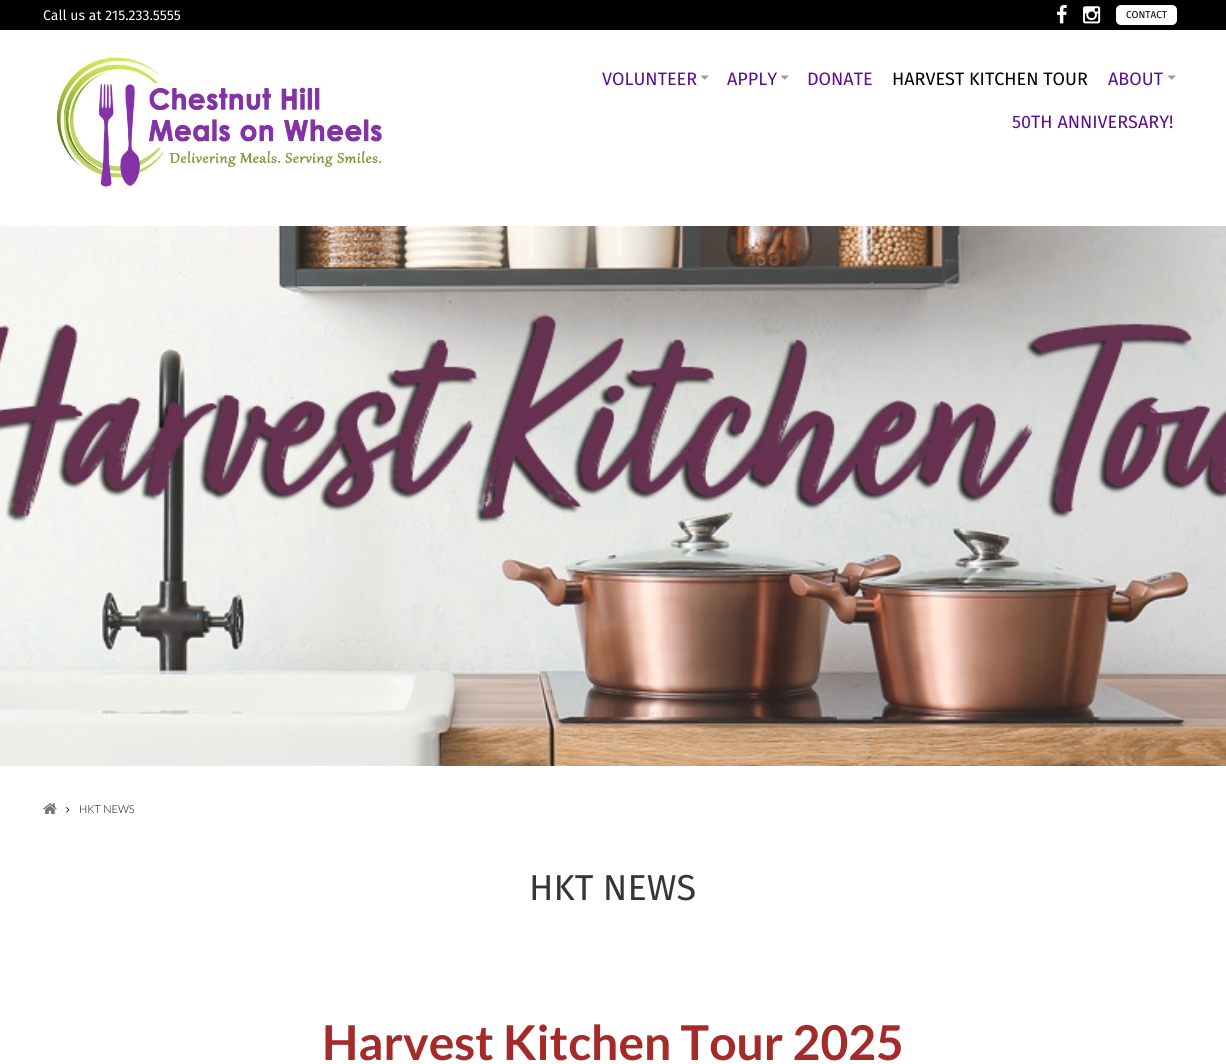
#include <cairo.h>
#include <math.h>
#include <stddef.h>


static void round_rect(cairo_t *cr, double x, double y, double w, double h, double r) {
    cairo_new_sub_path(cr);
    cairo_arc(cr, x + w - r, y + h - r, r, 0, M_PI / 2);
    cairo_arc(cr, x + r, y + h - r, r, M_PI / 2, M_PI);
    cairo_arc(cr, x + r, y + r, r, M_PI, 1.5 * M_PI);
    cairo_arc(cr, x + w - r, y + r, r, 1.5 * M_PI, 2 * M_PI);
    cairo_close_path(cr);
}

static void picture(cairo_t *cr, const char *path, double x, double y, double w, double h) {
    cairo_surface_t *image = cairo_image_surface_create_from_png(path);
    cairo_save(cr);
    cairo_set_source_surface(cr, image, x, y);
    cairo_rectangle(cr, x, y, w, h);
    cairo_fill(cr);
    cairo_restore(cr);
    cairo_surface_destroy(image);
}

int main(void) {
    cairo_surface_t *surface = cairo_image_surface_create(CAIRO_FORMAT_RGB24, 1226, 1064);
    cairo_t *cr = cairo_create(surface);
    cairo_font_options_t *options = cairo_font_options_create();
    cairo_font_options_set_hint_metrics(options, CAIRO_HINT_METRICS_OFF);
    cairo_font_options_set_hint_style(options, CAIRO_HINT_STYLE_NONE);
    cairo_set_font_options(cr, options);
    cairo_set_miter_limit(cr, 4);
    cairo_set_source_rgb(cr, 1, 1, 1);
    cairo_paint(cr);
    cairo_set_source_rgb(cr, 0, 0, 0);
    cairo_rectangle(cr, 0, 0, 1226, 30);
    cairo_fill(cr);
    cairo_select_font_face(cr, "Fira Sans", CAIRO_FONT_SLANT_NORMAL, CAIRO_FONT_WEIGHT_NORMAL);
    cairo_set_font_size(cr, 14);
    cairo_set_source_rgb(cr, 1, 1, 1);
    cairo_move_to(cr, 43, 20);
    cairo_show_text(cr, "Call us at 215.233.5555");
    picture(cr, "img1.png", 1057, 4, 10, 20);
    picture(cr, "img2.png", 1083, 6, 18, 18);
    round_rect(cr, 1116, 5, 61, 20, 5);
    cairo_fill(cr);
    cairo_set_font_size(cr, 10);
    cairo_set_source_rgb(cr, 0, 0, 0);
    cairo_move_to(cr, 1126, 18);
    cairo_show_text(cr, "CONTACT");
    picture(cr, "img3.png", 56, 54, 328, 136);
    cairo_set_font_size(cr, 18);
    cairo_set_source_rgb(cr, 0.361, 0.059, 0.545);
    cairo_move_to(cr, 602, 85);
    cairo_show_text(cr, "VOLUNTEER");
    picture(cr, "img4.png", 701, 75, 8, 5);
    cairo_move_to(cr, 727, 85);
    cairo_show_text(cr, "APPLY");
    picture(cr, "img4.png", 781, 75, 8, 5);
    cairo_move_to(cr, 807, 85);
    cairo_show_text(cr, "DONATE");
    cairo_set_source_rgb(cr, 0, 0, 0);
    cairo_move_to(cr, 892, 85);
    cairo_show_text(cr, "HARVEST KITCHEN TOUR");
    cairo_set_source_rgb(cr, 0.361, 0.059, 0.545);
    cairo_move_to(cr, 1108, 85);
    cairo_show_text(cr, "ABOUT");
    picture(cr, "img4.png", 1168, 75, 8, 5);
    cairo_move_to(cr, 1012, 128);
    cairo_show_text(cr, "50TH ANNIVERSARY!");
    picture(cr, "img5.png", 0, 226, 1226, 540);
    picture(cr, "img6.png", 43, 803, 14, 11);
    picture(cr, "img7.png", 66, 807, 4, 6);
    cairo_select_font_face(cr, "Lato Light", CAIRO_FONT_SLANT_NORMAL, CAIRO_FONT_WEIGHT_NORMAL);
    cairo_set_font_size(cr, 11);
    cairo_set_source_rgb(cr, 0, 0, 0);
    cairo_move_to(cr, 79, 813);
    cairo_show_text(cr, "HKT NEWS");
    cairo_select_font_face(cr, "Fira Sans", CAIRO_FONT_SLANT_NORMAL, CAIRO_FONT_WEIGHT_NORMAL);
    cairo_set_font_size(cr, 36);
    cairo_set_source_rgb(cr, 0.212, 0.212, 0.212);
    cairo_move_to(cr, 529, 900);
    cairo_show_text(cr, "HKT NEWS");
    cairo_select_font_face(cr, "Lato", CAIRO_FONT_SLANT_NORMAL, CAIRO_FONT_WEIGHT_BOLD);
    cairo_set_font_size(cr, 48);
    cairo_set_source_rgb(cr, 0.647, 0.165, 0.165);
    cairo_move_to(cr, 322, 1060);
    cairo_show_text(cr, "Harvest Kitchen Tour 2025");
    cairo_surface_write_to_png(surface, "page.png");
    cairo_font_options_destroy(options);
    cairo_destroy(cr);
    cairo_surface_destroy(surface);
    return 0;
}
